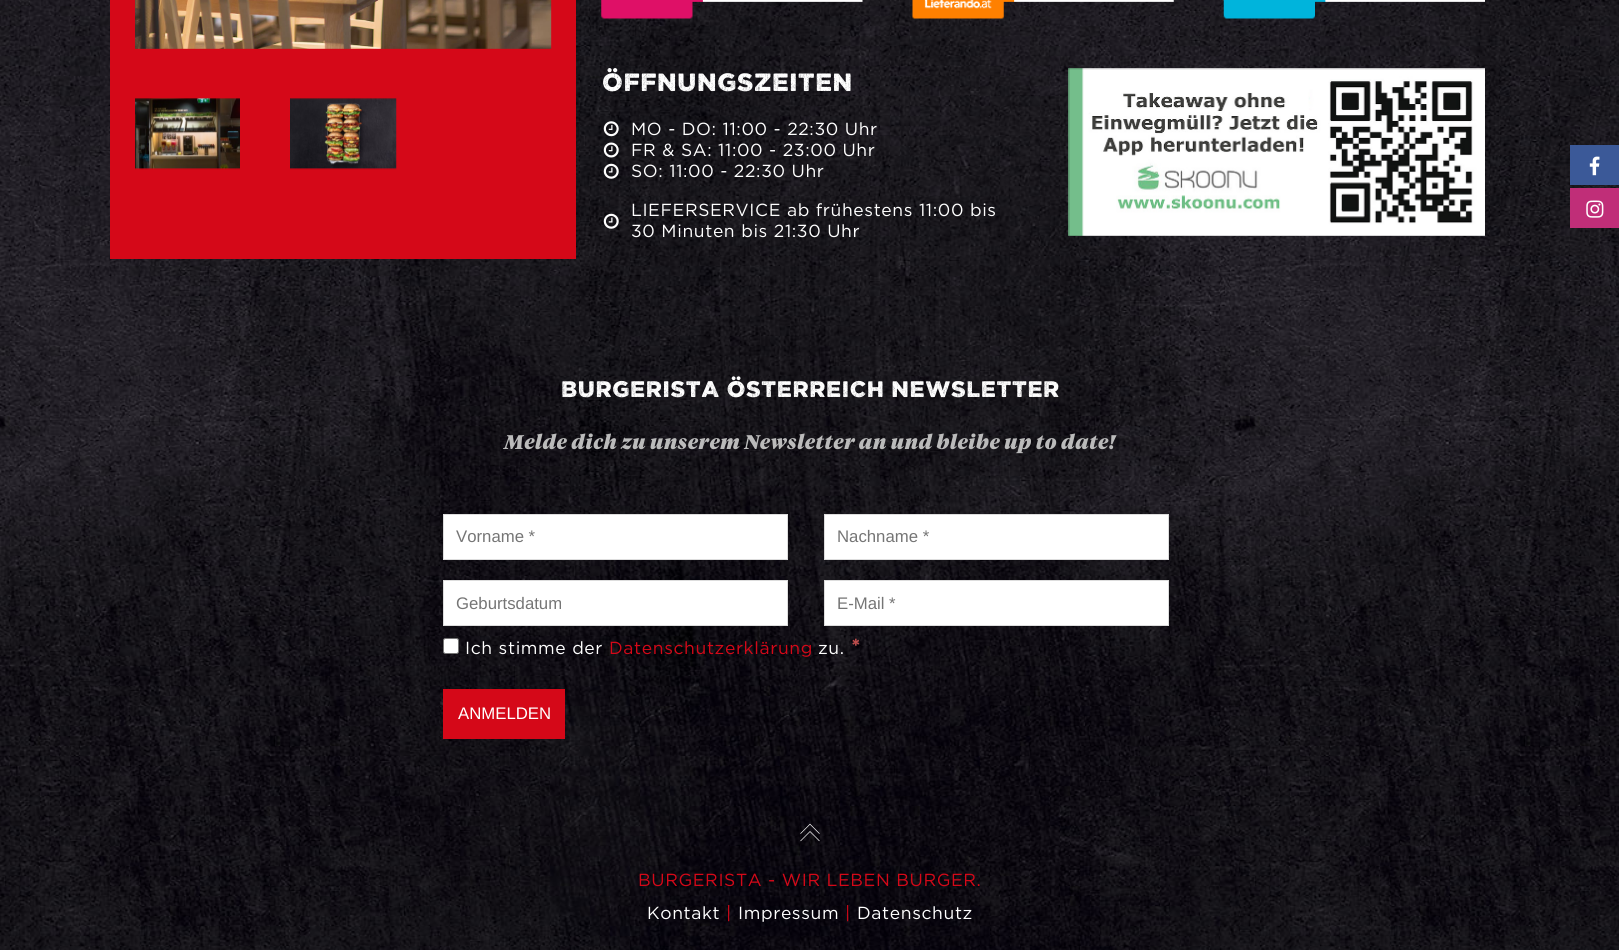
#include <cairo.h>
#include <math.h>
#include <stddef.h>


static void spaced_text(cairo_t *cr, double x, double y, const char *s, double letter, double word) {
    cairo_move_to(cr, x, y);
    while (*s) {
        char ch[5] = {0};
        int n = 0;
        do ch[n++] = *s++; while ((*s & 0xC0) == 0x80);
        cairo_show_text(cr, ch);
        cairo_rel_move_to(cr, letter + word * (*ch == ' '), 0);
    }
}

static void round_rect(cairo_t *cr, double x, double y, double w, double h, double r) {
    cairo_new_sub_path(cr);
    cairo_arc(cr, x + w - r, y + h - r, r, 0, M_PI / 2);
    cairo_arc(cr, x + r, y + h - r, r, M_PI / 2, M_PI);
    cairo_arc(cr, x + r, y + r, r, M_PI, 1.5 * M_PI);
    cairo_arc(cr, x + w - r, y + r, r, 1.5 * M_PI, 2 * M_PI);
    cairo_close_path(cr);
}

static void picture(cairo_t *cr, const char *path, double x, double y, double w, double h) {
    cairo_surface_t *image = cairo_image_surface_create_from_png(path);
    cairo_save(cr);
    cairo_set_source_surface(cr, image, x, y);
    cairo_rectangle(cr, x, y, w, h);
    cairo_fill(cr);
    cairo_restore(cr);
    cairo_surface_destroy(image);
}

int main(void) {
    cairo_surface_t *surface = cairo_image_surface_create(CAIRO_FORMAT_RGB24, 1619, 950);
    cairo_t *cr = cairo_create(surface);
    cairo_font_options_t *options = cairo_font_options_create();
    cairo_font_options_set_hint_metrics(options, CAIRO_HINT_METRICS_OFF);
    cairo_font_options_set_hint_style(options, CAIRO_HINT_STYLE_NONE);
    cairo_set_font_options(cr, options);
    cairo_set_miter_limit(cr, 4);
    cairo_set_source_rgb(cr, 1, 1, 1);
    cairo_paint(cr);
    picture(cr, "img1.png", 0, 0, 1619, 950);
    cairo_set_source_rgb(cr, 0.835, 0.035, 0.094);
    cairo_rectangle(cr, 110, 0, 466, 259);
    cairo_fill(cr);
    picture(cr, "img2.png", 135, 0, 417, 49);
    picture(cr, "img3.png", 135, 98, 105, 72);
    picture(cr, "img4.png", 290, 98, 107, 72);
    picture(cr, "img5.png", 601, 0, 262, 19);
    picture(cr, "img6.png", 912, 0, 262, 19);
    picture(cr, "img7.png", 1223, 0, 262, 19);
    cairo_select_font_face(cr, "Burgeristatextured", CAIRO_FONT_SLANT_NORMAL, CAIRO_FONT_WEIGHT_BOLD);
    cairo_set_font_size(cr, 25);
    cairo_set_source_rgb(cr, 1, 1, 1);
    spaced_text(cr, 602, 91, "ÖFFNUNGSZEITEN", 0.62, 0);
    picture(cr, "img8.png", 603, 121, 16, 16);
    cairo_select_font_face(cr, "Gotham", CAIRO_FONT_SLANT_NORMAL, CAIRO_FONT_WEIGHT_NORMAL);
    cairo_set_font_size(cr, 17.5);
    spaced_text(cr, 631, 135, "MO - DO: 11:00 - 22:30 Uhr", 0.62, 0);
    picture(cr, "img9.png", 603, 142, 16, 16);
    spaced_text(cr, 631, 156, "FR & SA: 11:00 - 23:00 Uhr", 0.62, 0);
    picture(cr, "img10.png", 603, 163, 16, 16);
    spaced_text(cr, 631, 177, "SO: 11:00 - 22:30 Uhr", 0.62, 0);
    picture(cr, "img11.png", 603, 213, 16, 16);
    spaced_text(cr, 631, 216, "LIEFERSERVICE ab frühestens 11:00 bis", 0.62, 0);
    spaced_text(cr, 631, 237, "30 Minuten bis 21:30 Uhr", 0.62, 0);
    picture(cr, "img12.png", 1068, 68, 417, 168);
    cairo_select_font_face(cr, "Burgeristatextured", CAIRO_FONT_SLANT_NORMAL, CAIRO_FONT_WEIGHT_BOLD);
    cairo_set_font_size(cr, 22.5);
    spaced_text(cr, 561, 397, "BURGERISTA ÖSTERREICH NEWSLETTER", 0.62, 0);
    cairo_select_font_face(cr, "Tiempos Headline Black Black", CAIRO_FONT_SLANT_ITALIC, CAIRO_FONT_WEIGHT_NORMAL);
    cairo_set_font_size(cr, 19.7);
    cairo_set_source_rgb(cr, 0.733, 0.733, 0.733);
    spaced_text(cr, 504, 449, "Melde dich zu unserem Newsletter an und bleibe up to date!", 0.62, 0);
    cairo_set_source_rgb(cr, 1, 1, 1);
    cairo_rectangle(cr, 443.5, 514.5, 344, 45);
    cairo_fill_preserve(cr);
    cairo_set_source_rgb(cr, 0.867, 0.867, 0.867);
    cairo_set_line_width(cr, 1);
    cairo_stroke(cr);
    cairo_select_font_face(cr, "Liberation Sans", CAIRO_FONT_SLANT_NORMAL, CAIRO_FONT_WEIGHT_NORMAL);
    cairo_set_font_size(cr, 16.75);
    cairo_set_source_rgb(cr, 0.459, 0.459, 0.459);
    cairo_move_to(cr, 456, 542);
    cairo_show_text(cr, "Vorname *");
    cairo_set_source_rgb(cr, 1, 1, 1);
    cairo_rectangle(cr, 824.5, 514.5, 344, 45);
    cairo_fill_preserve(cr);
    cairo_set_source_rgb(cr, 0.867, 0.867, 0.867);
    cairo_stroke(cr);
    cairo_set_source_rgb(cr, 0.459, 0.459, 0.459);
    cairo_move_to(cr, 837, 542);
    cairo_show_text(cr, "Nachname *");
    cairo_set_source_rgb(cr, 1, 1, 1);
    cairo_rectangle(cr, 443.5, 580.5, 344, 45);
    cairo_fill_preserve(cr);
    cairo_set_source_rgb(cr, 0.867, 0.867, 0.867);
    cairo_stroke(cr);
    cairo_set_source_rgb(cr, 0.459, 0.459, 0.459);
    cairo_move_to(cr, 456, 609);
    cairo_show_text(cr, "Geburtsdatum");
    cairo_set_source_rgb(cr, 1, 1, 1);
    cairo_rectangle(cr, 824.5, 580.5, 344, 45);
    cairo_fill_preserve(cr);
    cairo_set_source_rgb(cr, 0.867, 0.867, 0.867);
    cairo_stroke(cr);
    cairo_set_source_rgb(cr, 0.459, 0.459, 0.459);
    cairo_move_to(cr, 837, 609);
    cairo_show_text(cr, "E-Mail *");
    cairo_set_source_rgb(cr, 1, 1, 1);
    round_rect(cr, 443.5, 638.5, 15, 15, 2);
    cairo_fill_preserve(cr);
    cairo_set_source_rgb(cr, 0.463, 0.463, 0.463);
    cairo_stroke(cr);
    cairo_select_font_face(cr, "Gotham", CAIRO_FONT_SLANT_NORMAL, CAIRO_FONT_WEIGHT_NORMAL);
    cairo_set_font_size(cr, 17.5);
    cairo_set_source_rgb(cr, 1, 1, 1);
    spaced_text(cr, 465, 654, "Ich stimme der", 0.62, 0);
    cairo_set_source_rgb(cr, 0.835, 0.035, 0.094);
    spaced_text(cr, 609, 654, "Datenschutzerklärung", 0.62, 0);
    cairo_set_source_rgb(cr, 1, 1, 1);
    spaced_text(cr, 818, 654, "zu.", 0.62, 0);
    cairo_select_font_face(cr, "Gotham", CAIRO_FONT_SLANT_NORMAL, CAIRO_FONT_WEIGHT_BOLD);
    cairo_set_font_size(cr, 21);
    cairo_set_source_rgb(cr, 0.749, 0.302, 0.302);
    spaced_text(cr, 851, 654, "*", 0.62, 0);
    cairo_set_source_rgb(cr, 0.835, 0.035, 0.094);
    cairo_rectangle(cr, 443, 689, 122, 50);
    cairo_fill(cr);
    cairo_select_font_face(cr, "Liberation Sans", CAIRO_FONT_SLANT_NORMAL, CAIRO_FONT_WEIGHT_NORMAL);
    cairo_set_font_size(cr, 16.75);
    cairo_set_source_rgb(cr, 1, 1, 1);
    cairo_move_to(cr, 458, 719);
    cairo_show_text(cr, "ANMELDEN");
    cairo_set_source_rgb(cr, 0.231, 0.349, 0.596);
    cairo_rectangle(cr, 1570, 145, 49, 40);
    cairo_fill(cr);
    picture(cr, "img13.png", 1589, 156, 11, 20);
    cairo_set_source_rgb(cr, 0.753, 0.18, 0.471);
    cairo_rectangle(cr, 1570, 188, 49, 40);
    cairo_fill(cr);
    picture(cr, "img14.png", 1586, 200, 18, 18);
    picture(cr, "img15.png", 800, 823, 20, 19);
    cairo_select_font_face(cr, "Gotham", CAIRO_FONT_SLANT_NORMAL, CAIRO_FONT_WEIGHT_NORMAL);
    cairo_set_font_size(cr, 17.5);
    cairo_set_source_rgb(cr, 0.835, 0.035, 0.094);
    spaced_text(cr, 638, 886, "BURGERISTA - WIR LEBEN BURGER.", 0.62, 0);
    cairo_set_source_rgb(cr, 1, 1, 1);
    spaced_text(cr, 647, 919, "Kontakt", 0.62, 0);
    cairo_set_source_rgb(cr, 0.835, 0.035, 0.094);
    spaced_text(cr, 726, 919, "|", 0.62, 0);
    cairo_set_source_rgb(cr, 1, 1, 1);
    spaced_text(cr, 738, 919, "Impressum", 0.62, 0);
    cairo_set_source_rgb(cr, 0.835, 0.035, 0.094);
    spaced_text(cr, 845, 919, "|", 0.62, 0);
    cairo_set_source_rgb(cr, 1, 1, 1);
    spaced_text(cr, 857, 919, "Datenschutz", 0.62, 0);
    cairo_surface_write_to_png(surface, "page.png");
    cairo_font_options_destroy(options);
    cairo_destroy(cr);
    cairo_surface_destroy(surface);
    return 0;
}
